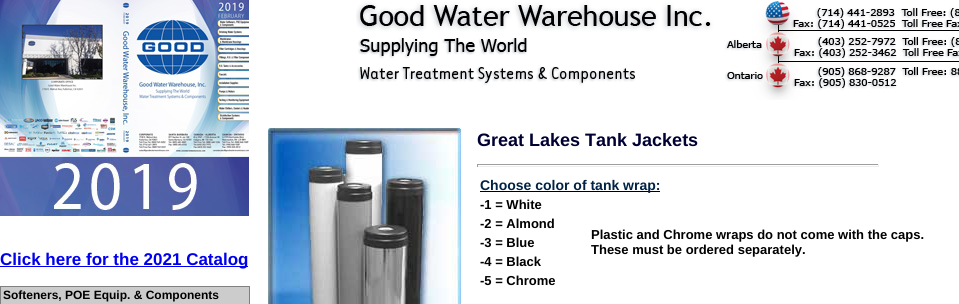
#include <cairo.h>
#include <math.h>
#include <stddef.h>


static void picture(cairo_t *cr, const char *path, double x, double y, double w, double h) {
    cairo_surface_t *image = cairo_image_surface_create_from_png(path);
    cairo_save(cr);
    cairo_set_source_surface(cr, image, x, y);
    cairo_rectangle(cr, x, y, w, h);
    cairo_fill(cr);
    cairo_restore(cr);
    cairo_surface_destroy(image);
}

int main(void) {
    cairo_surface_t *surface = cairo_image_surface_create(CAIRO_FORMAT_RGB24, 959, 304);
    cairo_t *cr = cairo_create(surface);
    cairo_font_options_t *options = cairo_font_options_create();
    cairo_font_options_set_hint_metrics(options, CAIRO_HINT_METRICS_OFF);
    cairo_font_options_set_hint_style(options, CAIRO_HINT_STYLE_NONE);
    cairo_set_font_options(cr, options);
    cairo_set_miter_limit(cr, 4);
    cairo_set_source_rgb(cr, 1, 1, 1);
    cairo_paint(cr);
    picture(cr, "img1.png", 356, 1, 603, 99);
    picture(cr, "img2.png", 0, 0, 249, 216);
    cairo_set_source_rgb(cr, 0, 0, 0.933);
    cairo_rectangle(cr, 0, 266, 248, 1);
    cairo_fill(cr);
    cairo_select_font_face(cr, "Liberation Sans", CAIRO_FONT_SLANT_NORMAL, CAIRO_FONT_WEIGHT_BOLD);
    cairo_set_font_size(cr, 17);
    cairo_move_to(cr, 0, 265);
    cairo_show_text(cr, "Click here for the 2021 Catalog");
    cairo_set_source_rgb(cr, 0.8, 0.8, 0.8);
    cairo_rectangle(cr, 0.5, 286.5, 249, 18);
    cairo_fill_preserve(cr);
    cairo_set_source_rgb(cr, 0.502, 0.502, 0.502);
    cairo_set_line_width(cr, 1);
    cairo_stroke(cr);
    cairo_set_font_size(cr, 12);
    cairo_set_source_rgb(cr, 0, 0, 0);
    cairo_move_to(cr, 3, 299);
    cairo_show_text(cr, "Softeners, POE Equip. & Components");
    picture(cr, "img3.png", 268, 128, 193, 176);
    cairo_set_font_size(cr, 18);
    cairo_set_source_rgb(cr, 0, 0, 0.2);
    cairo_move_to(cr, 477, 146);
    cairo_show_text(cr, "Great Lakes Tank Jackets");
    cairo_set_source_rgb(cr, 0.624, 0.624, 0.624);
    cairo_rectangle(cr, 477, 164, 402, 1);
    cairo_fill(cr);
    cairo_set_source_rgb(cr, 0.933, 0.933, 0.933);
    cairo_rectangle(cr, 878, 164, 1, 3);
    cairo_fill(cr);
    cairo_rectangle(cr, 477, 166, 402, 1);
    cairo_fill(cr);
    cairo_set_source_rgb(cr, 0.624, 0.624, 0.624);
    cairo_rectangle(cr, 477, 164, 1, 3);
    cairo_fill(cr);
    cairo_set_source_rgb(cr, 0, 0, 0);
    cairo_rectangle(cr, 480, 191, 180, 1);
    cairo_fill(cr);
    cairo_set_font_size(cr, 14);
    cairo_set_source_rgb(cr, 0, 0.133, 0.267);
    cairo_move_to(cr, 480, 190);
    cairo_show_text(cr, "Choose color of tank wrap:");
    cairo_set_font_size(cr, 13);
    cairo_set_source_rgb(cr, 0, 0, 0);
    cairo_move_to(cr, 480, 209);
    cairo_show_text(cr, "-1 = White");
    cairo_move_to(cr, 591, 239);
    cairo_show_text(cr, "Plastic and Chrome wraps do not come with the caps.");
    cairo_move_to(cr, 591, 254);
    cairo_show_text(cr, "These must be ordered separately.");
    cairo_move_to(cr, 480, 228);
    cairo_show_text(cr, "-2 = Almond");
    cairo_move_to(cr, 480, 247);
    cairo_show_text(cr, "-3 = Blue");
    cairo_move_to(cr, 480, 266);
    cairo_show_text(cr, "-4 = Black");
    cairo_move_to(cr, 480, 285);
    cairo_show_text(cr, "-5 = Chrome");
    cairo_surface_write_to_png(surface, "page.png");
    cairo_font_options_destroy(options);
    cairo_destroy(cr);
    cairo_surface_destroy(surface);
    return 0;
}
